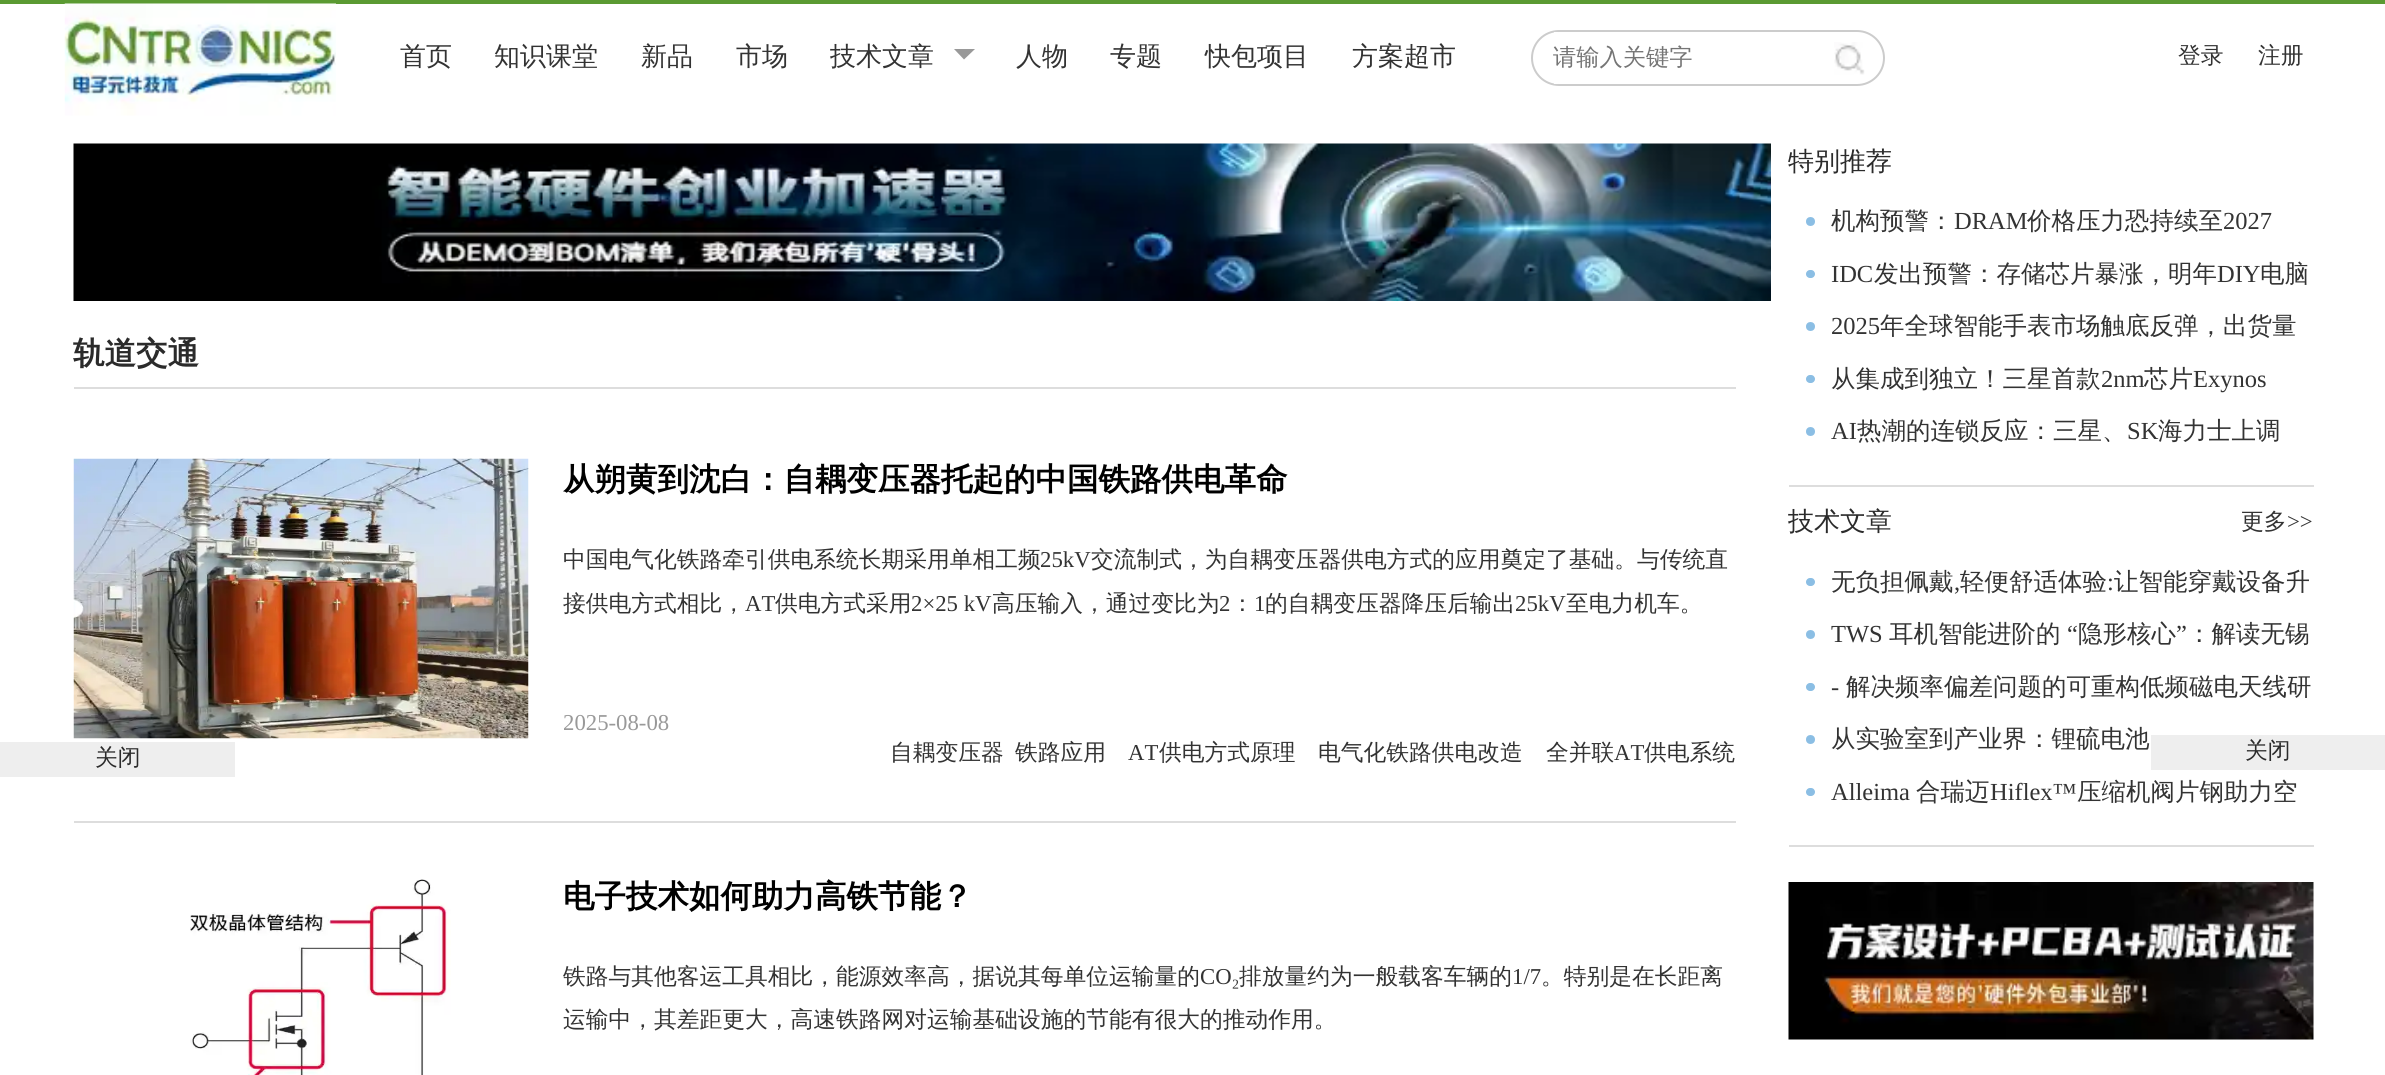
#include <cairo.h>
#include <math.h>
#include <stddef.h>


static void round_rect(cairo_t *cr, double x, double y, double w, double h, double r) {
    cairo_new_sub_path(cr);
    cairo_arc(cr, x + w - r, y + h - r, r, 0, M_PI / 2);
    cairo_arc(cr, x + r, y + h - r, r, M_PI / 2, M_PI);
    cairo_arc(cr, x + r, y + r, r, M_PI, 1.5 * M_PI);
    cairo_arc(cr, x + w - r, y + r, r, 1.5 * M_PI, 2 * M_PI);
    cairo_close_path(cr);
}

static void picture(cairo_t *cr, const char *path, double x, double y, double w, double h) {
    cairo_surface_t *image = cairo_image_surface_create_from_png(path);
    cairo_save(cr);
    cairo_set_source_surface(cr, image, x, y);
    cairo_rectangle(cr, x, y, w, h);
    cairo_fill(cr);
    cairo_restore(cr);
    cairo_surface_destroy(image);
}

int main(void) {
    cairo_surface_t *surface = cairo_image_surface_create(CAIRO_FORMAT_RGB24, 2385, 1075);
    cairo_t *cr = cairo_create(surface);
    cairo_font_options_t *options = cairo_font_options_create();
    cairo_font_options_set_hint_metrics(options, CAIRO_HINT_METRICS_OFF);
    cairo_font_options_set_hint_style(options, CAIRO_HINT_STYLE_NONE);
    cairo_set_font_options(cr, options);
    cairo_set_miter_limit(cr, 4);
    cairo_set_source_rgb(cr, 1, 1, 1);
    cairo_paint(cr);
    cairo_set_source_rgb(cr, 0.357, 0.604, 0.196);
    cairo_rectangle(cr, 0, 0, 2385, 4);
    cairo_fill(cr);
    picture(cr, "img1.png", 64, 3, 272, 113);
    cairo_select_font_face(cr, "WenQuanYi Zen Hei Medium", CAIRO_FONT_SLANT_NORMAL, CAIRO_FONT_WEIGHT_NORMAL);
    cairo_set_font_size(cr, 26);
    cairo_set_source_rgb(cr, 0.2, 0.2, 0.2);
    cairo_move_to(cr, 400, 65);
    cairo_show_text(cr, "首页");
    cairo_move_to(cr, 494, 65);
    cairo_show_text(cr, "知识课堂");
    cairo_move_to(cr, 641, 65);
    cairo_show_text(cr, "新品");
    cairo_move_to(cr, 736, 65);
    cairo_show_text(cr, "市场");
    cairo_move_to(cr, 830, 65);
    cairo_show_text(cr, "技术文章");
    cairo_set_source_rgb(cr, 0.6, 0.6, 0.6);
    cairo_new_path(cr);
    cairo_move_to(cr, 954, 49);
    cairo_line_to(cr, 975, 49);
    cairo_line_to(cr, 964, 59.5);
    cairo_close_path(cr);
    cairo_fill(cr);
    cairo_set_source_rgb(cr, 0.2, 0.2, 0.2);
    cairo_move_to(cr, 1016, 65);
    cairo_show_text(cr, "人物");
    cairo_move_to(cr, 1110, 65);
    cairo_show_text(cr, "专题");
    cairo_move_to(cr, 1205, 65);
    cairo_show_text(cr, "快包项目");
    cairo_move_to(cr, 1352, 65);
    cairo_show_text(cr, "方案超市");
    round_rect(cr, 1532, 31, 352, 54, 27);
    cairo_set_source_rgb(cr, 0.8, 0.8, 0.8);
    cairo_stroke(cr);
    cairo_set_source_rgb(cr, 1, 1, 1);
    cairo_rectangle(cr, 1554, 32, 4, 52);
    cairo_fill(cr);
    cairo_set_font_size(cr, 23.25);
    cairo_set_source_rgb(cr, 0.459, 0.459, 0.459);
    cairo_move_to(cr, 1553, 65);
    cairo_show_text(cr, "请输入关键字");
    picture(cr, "img2.png", 1834, 42, 31, 33);
    cairo_set_font_size(cr, 22.75);
    cairo_set_source_rgb(cr, 0.2, 0.2, 0.2);
    cairo_move_to(cr, 2178, 63);
    cairo_show_text(cr, "登录");
    cairo_move_to(cr, 2258, 63);
    cairo_show_text(cr, "注册");
    picture(cr, "img3.png", 73, 143, 1698, 158);
    cairo_set_source_rgb(cr, 0.867, 0.867, 0.867);
    cairo_rectangle(cr, 74, 387, 1662, 2);
    cairo_fill(cr);
    cairo_select_font_face(cr, "WenQuanYi Zen Hei", CAIRO_FONT_SLANT_NORMAL, CAIRO_FONT_WEIGHT_BOLD);
    cairo_set_font_size(cr, 31.5);
    cairo_set_source_rgb(cr, 0.169, 0.169, 0.169);
    cairo_move_to(cr, 73, 364);
    cairo_show_text(cr, "轨道交通");
    cairo_set_source_rgb(cr, 0.867, 0.867, 0.867);
    cairo_rectangle(cr, 74, 821, 1662, 2);
    cairo_fill(cr);
    picture(cr, "img4.png", 73, 458, 456, 281);
    cairo_set_source_rgb(cr, 0, 0, 0);
    cairo_move_to(cr, 563, 490);
    cairo_show_text(cr, "从朔黄到沈白：自耦变压器托起的中国铁路供电革命");
    cairo_select_font_face(cr, "WenQuanYi Zen Hei Medium", CAIRO_FONT_SLANT_NORMAL, CAIRO_FONT_WEIGHT_NORMAL);
    cairo_set_font_size(cr, 22.75);
    cairo_set_source_rgb(cr, 0.2, 0.2, 0.2);
    cairo_move_to(cr, 563, 567);
    cairo_show_text(cr, "中国电气化铁路牵引供电系统长期采用单相工频");
    cairo_select_font_face(cr, "Liberation Serif", CAIRO_FONT_SLANT_NORMAL, CAIRO_FONT_WEIGHT_NORMAL);
    cairo_move_to(cr, 1040, 567);
    cairo_show_text(cr, "25kV");
    cairo_select_font_face(cr, "WenQuanYi Zen Hei Medium", CAIRO_FONT_SLANT_NORMAL, CAIRO_FONT_WEIGHT_NORMAL);
    cairo_move_to(cr, 1091, 567);
    cairo_show_text(cr, "交流制式，为自耦变压器供电方式的应用奠定了基础。与传统直");
    cairo_move_to(cr, 563, 611);
    cairo_show_text(cr, "接供电方式相比，");
    cairo_select_font_face(cr, "Liberation Serif", CAIRO_FONT_SLANT_NORMAL, CAIRO_FONT_WEIGHT_NORMAL);
    cairo_move_to(cr, 745, 611);
    cairo_show_text(cr, "AT");
    cairo_select_font_face(cr, "WenQuanYi Zen Hei Medium", CAIRO_FONT_SLANT_NORMAL, CAIRO_FONT_WEIGHT_NORMAL);
    cairo_move_to(cr, 775, 611);
    cairo_show_text(cr, "供电方式采用");
    cairo_select_font_face(cr, "Liberation Serif", CAIRO_FONT_SLANT_NORMAL, CAIRO_FONT_WEIGHT_NORMAL);
    cairo_move_to(cr, 911, 611);
    cairo_show_text(cr, "2×25 kV");
    cairo_select_font_face(cr, "WenQuanYi Zen Hei Medium", CAIRO_FONT_SLANT_NORMAL, CAIRO_FONT_WEIGHT_NORMAL);
    cairo_move_to(cr, 992, 611);
    cairo_show_text(cr, "高压输入，通过变比为");
    cairo_select_font_face(cr, "Liberation Serif", CAIRO_FONT_SLANT_NORMAL, CAIRO_FONT_WEIGHT_NORMAL);
    cairo_move_to(cr, 1219, 611);
    cairo_show_text(cr, "2");
    cairo_select_font_face(cr, "WenQuanYi Zen Hei Medium", CAIRO_FONT_SLANT_NORMAL, CAIRO_FONT_WEIGHT_NORMAL);
    cairo_move_to(cr, 1231, 611);
    cairo_show_text(cr, "：");
    cairo_select_font_face(cr, "Liberation Serif", CAIRO_FONT_SLANT_NORMAL, CAIRO_FONT_WEIGHT_NORMAL);
    cairo_move_to(cr, 1254, 611);
    cairo_show_text(cr, "1");
    cairo_select_font_face(cr, "WenQuanYi Zen Hei Medium", CAIRO_FONT_SLANT_NORMAL, CAIRO_FONT_WEIGHT_NORMAL);
    cairo_move_to(cr, 1265, 611);
    cairo_show_text(cr, "的自耦变压器降压后输出");
    cairo_select_font_face(cr, "Liberation Serif", CAIRO_FONT_SLANT_NORMAL, CAIRO_FONT_WEIGHT_NORMAL);
    cairo_move_to(cr, 1515, 611);
    cairo_show_text(cr, "25kV");
    cairo_select_font_face(cr, "WenQuanYi Zen Hei Medium", CAIRO_FONT_SLANT_NORMAL, CAIRO_FONT_WEIGHT_NORMAL);
    cairo_move_to(cr, 1566, 611);
    cairo_show_text(cr, "至电力机车。");
    cairo_select_font_face(cr, "Liberation Serif", CAIRO_FONT_SLANT_NORMAL, CAIRO_FONT_WEIGHT_NORMAL);
    cairo_set_source_rgb(cr, 0.6, 0.6, 0.6);
    cairo_move_to(cr, 563, 730);
    cairo_show_text(cr, "2025-08-08");
    cairo_select_font_face(cr, "WenQuanYi Zen Hei Medium", CAIRO_FONT_SLANT_NORMAL, CAIRO_FONT_WEIGHT_NORMAL);
    cairo_set_source_rgb(cr, 0.2, 0.2, 0.2);
    cairo_move_to(cr, 890, 760);
    cairo_show_text(cr, "自耦变压器");
    cairo_move_to(cr, 1015, 760);
    cairo_show_text(cr, "铁路应用");
    cairo_select_font_face(cr, "Liberation Serif", CAIRO_FONT_SLANT_NORMAL, CAIRO_FONT_WEIGHT_NORMAL);
    cairo_move_to(cr, 1128, 760);
    cairo_show_text(cr, "AT");
    cairo_select_font_face(cr, "WenQuanYi Zen Hei Medium", CAIRO_FONT_SLANT_NORMAL, CAIRO_FONT_WEIGHT_NORMAL);
    cairo_move_to(cr, 1159, 760);
    cairo_show_text(cr, "供电方式原理");
    cairo_move_to(cr, 1318, 760);
    cairo_show_text(cr, "电气化铁路供电改造");
    cairo_move_to(cr, 1546, 760);
    cairo_show_text(cr, "全并联");
    cairo_select_font_face(cr, "Liberation Serif", CAIRO_FONT_SLANT_NORMAL, CAIRO_FONT_WEIGHT_NORMAL);
    cairo_move_to(cr, 1614, 760);
    cairo_show_text(cr, "AT");
    cairo_select_font_face(cr, "WenQuanYi Zen Hei Medium", CAIRO_FONT_SLANT_NORMAL, CAIRO_FONT_WEIGHT_NORMAL);
    cairo_move_to(cr, 1644, 760);
    cairo_show_text(cr, "供电系统");
    picture(cr, "img5.png", 190, 879, 261, 196);
    cairo_select_font_face(cr, "WenQuanYi Zen Hei", CAIRO_FONT_SLANT_NORMAL, CAIRO_FONT_WEIGHT_BOLD);
    cairo_set_font_size(cr, 31.5);
    cairo_set_source_rgb(cr, 0, 0, 0);
    cairo_move_to(cr, 563, 907);
    cairo_show_text(cr, "电子技术如何助力高铁节能？");
    cairo_select_font_face(cr, "WenQuanYi Zen Hei Medium", CAIRO_FONT_SLANT_NORMAL, CAIRO_FONT_WEIGHT_NORMAL);
    cairo_set_font_size(cr, 22.75);
    cairo_set_source_rgb(cr, 0.2, 0.2, 0.2);
    cairo_move_to(cr, 563, 984);
    cairo_show_text(cr, "铁路与其他客运工具相比，能源效率高，据说其每单位运输量的");
    cairo_select_font_face(cr, "Liberation Serif", CAIRO_FONT_SLANT_NORMAL, CAIRO_FONT_WEIGHT_NORMAL);
    cairo_move_to(cr, 1200, 984);
    cairo_show_text(cr, "CO₂");
    cairo_select_font_face(cr, "WenQuanYi Zen Hei Medium", CAIRO_FONT_SLANT_NORMAL, CAIRO_FONT_WEIGHT_NORMAL);
    cairo_move_to(cr, 1239, 984);
    cairo_show_text(cr, "排放量约为一般载客车辆的");
    cairo_select_font_face(cr, "Liberation Serif", CAIRO_FONT_SLANT_NORMAL, CAIRO_FONT_WEIGHT_NORMAL);
    cairo_move_to(cr, 1512, 984);
    cairo_show_text(cr, "1/7");
    cairo_select_font_face(cr, "WenQuanYi Zen Hei Medium", CAIRO_FONT_SLANT_NORMAL, CAIRO_FONT_WEIGHT_NORMAL);
    cairo_move_to(cr, 1541, 984);
    cairo_show_text(cr, "。特别是在长距离");
    cairo_move_to(cr, 563, 1027);
    cairo_show_text(cr, "运输中，其差距更大，高速铁路网对运输基础设施的节能有很大的推动作用。");
    cairo_set_font_size(cr, 26);
    cairo_set_source_rgb(cr, 0.169, 0.169, 0.169);
    cairo_move_to(cr, 1788, 170);
    cairo_show_text(cr, "特别推荐");
    cairo_set_source_rgb(cr, 0.867, 0.867, 0.867);
    cairo_rectangle(cr, 1789, 485, 525, 2);
    cairo_fill(cr);
    cairo_set_source_rgb(cr, 0.545, 0.745, 0.894);
    cairo_arc(cr, 1810.5, 221.5, 4.5, 0, 2 * M_PI);
    cairo_fill(cr);
    cairo_set_font_size(cr, 24.5);
    cairo_set_source_rgb(cr, 0.2, 0.2, 0.2);
    cairo_move_to(cr, 1831, 229);
    cairo_show_text(cr, "机构预警：");
    cairo_select_font_face(cr, "Liberation Serif", CAIRO_FONT_SLANT_NORMAL, CAIRO_FONT_WEIGHT_NORMAL);
    cairo_move_to(cr, 1954, 229);
    cairo_show_text(cr, "DRAM");
    cairo_select_font_face(cr, "WenQuanYi Zen Hei Medium", CAIRO_FONT_SLANT_NORMAL, CAIRO_FONT_WEIGHT_NORMAL);
    cairo_move_to(cr, 2027, 229);
    cairo_show_text(cr, "价格压力恐持续至");
    cairo_select_font_face(cr, "Liberation Serif", CAIRO_FONT_SLANT_NORMAL, CAIRO_FONT_WEIGHT_NORMAL);
    cairo_move_to(cr, 2223, 229);
    cairo_show_text(cr, "2027");
    cairo_set_source_rgb(cr, 0.545, 0.745, 0.894);
    round_rect(cr, 1806, 270, 9, 8, 4);
    cairo_fill(cr);
    cairo_set_source_rgb(cr, 0.2, 0.2, 0.2);
    cairo_move_to(cr, 1831, 282);
    cairo_show_text(cr, "IDC");
    cairo_select_font_face(cr, "WenQuanYi Zen Hei Medium", CAIRO_FONT_SLANT_NORMAL, CAIRO_FONT_WEIGHT_NORMAL);
    cairo_move_to(cr, 1874, 282);
    cairo_show_text(cr, "发出预警：存储芯片暴涨，明年");
    cairo_select_font_face(cr, "Liberation Serif", CAIRO_FONT_SLANT_NORMAL, CAIRO_FONT_WEIGHT_NORMAL);
    cairo_move_to(cr, 2217, 282);
    cairo_show_text(cr, "DIY");
    cairo_select_font_face(cr, "WenQuanYi Zen Hei Medium", CAIRO_FONT_SLANT_NORMAL, CAIRO_FONT_WEIGHT_NORMAL);
    cairo_move_to(cr, 2260, 282);
    cairo_show_text(cr, "电脑");
    cairo_set_source_rgb(cr, 0.545, 0.745, 0.894);
    cairo_new_path(cr);
    cairo_arc(cr, 1810.5, 326.5, 4.5, 0, 2 * M_PI);
    cairo_fill(cr);
    cairo_select_font_face(cr, "Liberation Serif", CAIRO_FONT_SLANT_NORMAL, CAIRO_FONT_WEIGHT_NORMAL);
    cairo_set_source_rgb(cr, 0.2, 0.2, 0.2);
    cairo_move_to(cr, 1831, 334);
    cairo_show_text(cr, "2025");
    cairo_select_font_face(cr, "WenQuanYi Zen Hei Medium", CAIRO_FONT_SLANT_NORMAL, CAIRO_FONT_WEIGHT_NORMAL);
    cairo_move_to(cr, 1880, 334);
    cairo_show_text(cr, "年全球智能手表市场触底反弹，出货量");
    cairo_set_source_rgb(cr, 0.545, 0.745, 0.894);
    round_rect(cr, 1806, 375, 9, 8, 4);
    cairo_fill(cr);
    cairo_set_source_rgb(cr, 0.2, 0.2, 0.2);
    cairo_move_to(cr, 1831, 387);
    cairo_show_text(cr, "从集成到独立！三星首款");
    cairo_select_font_face(cr, "Liberation Serif", CAIRO_FONT_SLANT_NORMAL, CAIRO_FONT_WEIGHT_NORMAL);
    cairo_move_to(cr, 2101, 387);
    cairo_show_text(cr, "2nm");
    cairo_select_font_face(cr, "WenQuanYi Zen Hei Medium", CAIRO_FONT_SLANT_NORMAL, CAIRO_FONT_WEIGHT_NORMAL);
    cairo_move_to(cr, 2144, 387);
    cairo_show_text(cr, "芯片");
    cairo_select_font_face(cr, "Liberation Serif", CAIRO_FONT_SLANT_NORMAL, CAIRO_FONT_WEIGHT_NORMAL);
    cairo_move_to(cr, 2193, 387);
    cairo_show_text(cr, "Exynos");
    cairo_set_source_rgb(cr, 0.545, 0.745, 0.894);
    cairo_new_path(cr);
    cairo_arc(cr, 1810.5, 431.5, 4.5, 0, 2 * M_PI);
    cairo_fill(cr);
    cairo_set_source_rgb(cr, 0.2, 0.2, 0.2);
    cairo_move_to(cr, 1831, 439);
    cairo_show_text(cr, "AI");
    cairo_select_font_face(cr, "WenQuanYi Zen Hei Medium", CAIRO_FONT_SLANT_NORMAL, CAIRO_FONT_WEIGHT_NORMAL);
    cairo_move_to(cr, 1857, 439);
    cairo_show_text(cr, "热潮的连锁反应：三星、");
    cairo_select_font_face(cr, "Liberation Serif", CAIRO_FONT_SLANT_NORMAL, CAIRO_FONT_WEIGHT_NORMAL);
    cairo_move_to(cr, 2127, 439);
    cairo_show_text(cr, "SK");
    cairo_select_font_face(cr, "WenQuanYi Zen Hei Medium", CAIRO_FONT_SLANT_NORMAL, CAIRO_FONT_WEIGHT_NORMAL);
    cairo_move_to(cr, 2158, 439);
    cairo_show_text(cr, "海力士上调");
    cairo_set_font_size(cr, 26);
    cairo_set_source_rgb(cr, 0.169, 0.169, 0.169);
    cairo_move_to(cr, 1788, 530);
    cairo_show_text(cr, "技术文章");
    cairo_set_font_size(cr, 22.75);
    cairo_set_source_rgb(cr, 0.2, 0.2, 0.2);
    cairo_move_to(cr, 2241, 529);
    cairo_show_text(cr, "更多");
    cairo_select_font_face(cr, "Liberation Serif", CAIRO_FONT_SLANT_NORMAL, CAIRO_FONT_WEIGHT_NORMAL);
    cairo_move_to(cr, 2287, 529);
    cairo_show_text(cr, ">>");
    cairo_set_source_rgb(cr, 0.867, 0.867, 0.867);
    cairo_rectangle(cr, 1789, 845, 525, 2);
    cairo_fill(cr);
    cairo_set_source_rgb(cr, 0.545, 0.745, 0.894);
    round_rect(cr, 1806, 578, 9, 8, 4);
    cairo_fill(cr);
    cairo_select_font_face(cr, "WenQuanYi Zen Hei Medium", CAIRO_FONT_SLANT_NORMAL, CAIRO_FONT_WEIGHT_NORMAL);
    cairo_set_font_size(cr, 24.5);
    cairo_set_source_rgb(cr, 0.2, 0.2, 0.2);
    cairo_move_to(cr, 1831, 590);
    cairo_show_text(cr, "无负担佩戴");
    cairo_select_font_face(cr, "Liberation Serif", CAIRO_FONT_SLANT_NORMAL, CAIRO_FONT_WEIGHT_NORMAL);
    cairo_move_to(cr, 1954, 590);
    cairo_show_text(cr, ",");
    cairo_select_font_face(cr, "WenQuanYi Zen Hei Medium", CAIRO_FONT_SLANT_NORMAL, CAIRO_FONT_WEIGHT_NORMAL);
    cairo_move_to(cr, 1960, 590);
    cairo_show_text(cr, "轻便舒适体验");
    cairo_select_font_face(cr, "Liberation Serif", CAIRO_FONT_SLANT_NORMAL, CAIRO_FONT_WEIGHT_NORMAL);
    cairo_move_to(cr, 2107, 590);
    cairo_show_text(cr, ":");
    cairo_select_font_face(cr, "WenQuanYi Zen Hei Medium", CAIRO_FONT_SLANT_NORMAL, CAIRO_FONT_WEIGHT_NORMAL);
    cairo_move_to(cr, 2114, 590);
    cairo_show_text(cr, "让智能穿戴设备升");
    cairo_select_font_face(cr, "Liberation Serif", CAIRO_FONT_SLANT_NORMAL, CAIRO_FONT_WEIGHT_NORMAL);
    cairo_move_to(cr, 1831, 642);
    cairo_show_text(cr, "TWS");
    cairo_select_font_face(cr, "WenQuanYi Zen Hei Medium", CAIRO_FONT_SLANT_NORMAL, CAIRO_FONT_WEIGHT_NORMAL);
    cairo_move_to(cr, 1889, 642);
    cairo_show_text(cr, "耳机智能进阶的");
    cairo_select_font_face(cr, "Liberation Serif", CAIRO_FONT_SLANT_NORMAL, CAIRO_FONT_WEIGHT_NORMAL);
    cairo_move_to(cr, 2067, 642);
    cairo_show_text(cr, "“");
    cairo_select_font_face(cr, "WenQuanYi Zen Hei Medium", CAIRO_FONT_SLANT_NORMAL, CAIRO_FONT_WEIGHT_NORMAL);
    cairo_move_to(cr, 2078, 642);
    cairo_show_text(cr, "隐形核心");
    cairo_select_font_face(cr, "Liberation Serif", CAIRO_FONT_SLANT_NORMAL, CAIRO_FONT_WEIGHT_NORMAL);
    cairo_move_to(cr, 2176, 642);
    cairo_show_text(cr, "”");
    cairo_select_font_face(cr, "WenQuanYi Zen Hei Medium", CAIRO_FONT_SLANT_NORMAL, CAIRO_FONT_WEIGHT_NORMAL);
    cairo_move_to(cr, 2187, 642);
    cairo_show_text(cr, "：解读无锡");
    cairo_set_source_rgb(cr, 0.545, 0.745, 0.894);
    cairo_new_path(cr);
    cairo_arc(cr, 1810.5, 634.5, 4.5, 0, 2 * M_PI);
    cairo_fill(cr);
    round_rect(cr, 1806, 683, 9, 8, 4);
    cairo_fill(cr);
    cairo_select_font_face(cr, "Liberation Serif", CAIRO_FONT_SLANT_NORMAL, CAIRO_FONT_WEIGHT_NORMAL);
    cairo_set_source_rgb(cr, 0.2, 0.2, 0.2);
    cairo_move_to(cr, 1831, 695);
    cairo_show_text(cr, "-");
    cairo_select_font_face(cr, "WenQuanYi Zen Hei Medium", CAIRO_FONT_SLANT_NORMAL, CAIRO_FONT_WEIGHT_NORMAL);
    cairo_move_to(cr, 1846, 695);
    cairo_show_text(cr, "解决频率偏差问题的可重构低频磁电天线研");
    cairo_set_source_rgb(cr, 0.545, 0.745, 0.894);
    cairo_new_path(cr);
    cairo_arc(cr, 1810.5, 739.5, 4.5, 0, 2 * M_PI);
    cairo_fill(cr);
    cairo_set_source_rgb(cr, 0.2, 0.2, 0.2);
    cairo_move_to(cr, 1831, 747);
    cairo_show_text(cr, "从实验室到产业界：锂硫电池");
    cairo_set_source_rgb(cr, 0.545, 0.745, 0.894);
    round_rect(cr, 1806, 788, 9, 8, 4);
    cairo_fill(cr);
    cairo_select_font_face(cr, "Liberation Serif", CAIRO_FONT_SLANT_NORMAL, CAIRO_FONT_WEIGHT_NORMAL);
    cairo_set_source_rgb(cr, 0.2, 0.2, 0.2);
    cairo_move_to(cr, 1831, 800);
    cairo_show_text(cr, "Alleima");
    cairo_select_font_face(cr, "WenQuanYi Zen Hei Medium", CAIRO_FONT_SLANT_NORMAL, CAIRO_FONT_WEIGHT_NORMAL);
    cairo_move_to(cr, 1916, 800);
    cairo_show_text(cr, "合瑞迈");
    cairo_select_font_face(cr, "Liberation Serif", CAIRO_FONT_SLANT_NORMAL, CAIRO_FONT_WEIGHT_NORMAL);
    cairo_move_to(cr, 1990, 800);
    cairo_show_text(cr, "Hiflex™");
    cairo_select_font_face(cr, "WenQuanYi Zen Hei Medium", CAIRO_FONT_SLANT_NORMAL, CAIRO_FONT_WEIGHT_NORMAL);
    cairo_move_to(cr, 2077, 800);
    cairo_show_text(cr, "压缩机阀片钢助力空");
    picture(cr, "img6.png", 1788, 882, 526, 158);
    cairo_set_source_rgb(cr, 0.933, 0.933, 0.933);
    cairo_rectangle(cr, 0, 742, 235, 35);
    cairo_fill(cr);
    cairo_set_font_size(cr, 22.75);
    cairo_set_source_rgb(cr, 0.169, 0.169, 0.169);
    cairo_move_to(cr, 95, 765);
    cairo_show_text(cr, "关闭");
    cairo_set_source_rgb(cr, 0.933, 0.933, 0.933);
    cairo_rectangle(cr, 2151, 735, 234, 35);
    cairo_fill(cr);
    cairo_set_source_rgb(cr, 0.169, 0.169, 0.169);
    cairo_move_to(cr, 2245, 758);
    cairo_show_text(cr, "关闭");
    cairo_surface_write_to_png(surface, "page.png");
    cairo_font_options_destroy(options);
    cairo_destroy(cr);
    cairo_surface_destroy(surface);
    return 0;
}
